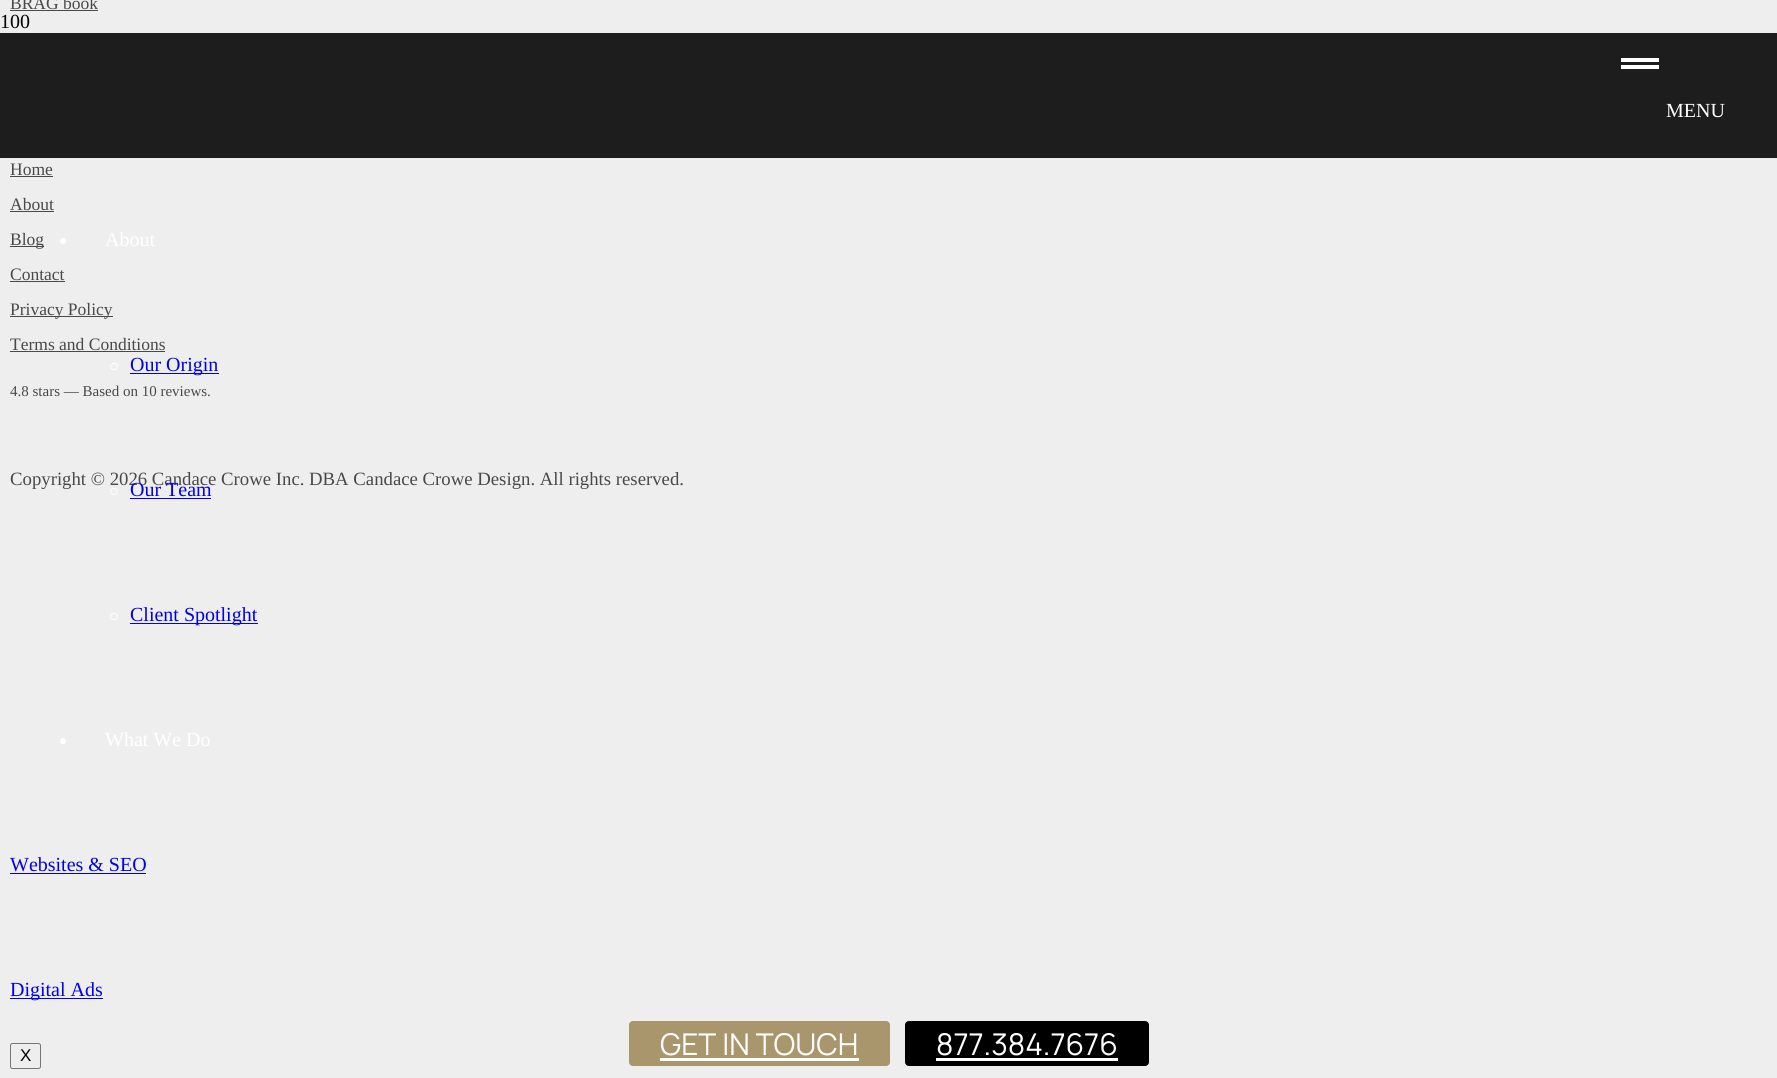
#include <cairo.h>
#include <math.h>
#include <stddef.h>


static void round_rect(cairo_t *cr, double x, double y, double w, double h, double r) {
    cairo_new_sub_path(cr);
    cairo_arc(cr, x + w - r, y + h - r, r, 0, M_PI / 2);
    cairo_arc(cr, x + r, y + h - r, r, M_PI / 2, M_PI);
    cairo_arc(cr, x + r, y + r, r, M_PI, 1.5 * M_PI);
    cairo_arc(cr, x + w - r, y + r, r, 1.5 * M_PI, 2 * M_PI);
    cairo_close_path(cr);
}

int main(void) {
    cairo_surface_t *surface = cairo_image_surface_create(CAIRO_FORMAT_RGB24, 1777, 1078);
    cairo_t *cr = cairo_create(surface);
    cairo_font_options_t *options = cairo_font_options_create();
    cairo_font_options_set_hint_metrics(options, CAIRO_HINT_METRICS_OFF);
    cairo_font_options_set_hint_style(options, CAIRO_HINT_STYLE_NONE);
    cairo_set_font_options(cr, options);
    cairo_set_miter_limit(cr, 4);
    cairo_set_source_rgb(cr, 0.933, 0.933, 0.933);
    cairo_paint(cr);
    cairo_select_font_face(cr, "Liberation Serif", CAIRO_FONT_SLANT_NORMAL, CAIRO_FONT_WEIGHT_NORMAL);
    cairo_set_font_size(cr, 17.5);
    cairo_set_source_rgb(cr, 0.286, 0.286, 0.286);
    cairo_move_to(cr, 10, 9);
    cairo_show_text(cr, "BRAG book");
    cairo_rectangle(cr, 10, 10, 88, 1);
    cairo_fill(cr);
    cairo_move_to(cr, 10, 175);
    cairo_show_text(cr, "Home");
    cairo_rectangle(cr, 10, 176, 43, 1);
    cairo_fill(cr);
    cairo_move_to(cr, 10, 210);
    cairo_show_text(cr, "About");
    cairo_rectangle(cr, 10, 211, 44, 1);
    cairo_fill(cr);
    cairo_rectangle(cr, 10, 246, 34, 1);
    cairo_fill(cr);
    cairo_move_to(cr, 10, 245);
    cairo_show_text(cr, "Blog");
    cairo_move_to(cr, 10, 280);
    cairo_show_text(cr, "Contact");
    cairo_rectangle(cr, 10, 281, 55, 1);
    cairo_fill(cr);
    cairo_rectangle(cr, 10, 316, 103, 1);
    cairo_fill(cr);
    cairo_move_to(cr, 10, 315);
    cairo_show_text(cr, "Privacy Policy");
    cairo_move_to(cr, 10, 350);
    cairo_show_text(cr, "Terms and Conditions");
    cairo_rectangle(cr, 10, 351, 155, 1);
    cairo_fill(cr);
    cairo_set_font_size(cr, 15);
    cairo_move_to(cr, 10, 396);
    cairo_show_text(cr, "4.8 stars — Based on 10 reviews.");
    cairo_set_font_size(cr, 18.75);
    cairo_move_to(cr, 10, 485);
    cairo_show_text(cr, "Copyright © 2026 Candace Crowe Inc. DBA Candace Crowe Design. All rights reserved.");
    cairo_set_font_size(cr, 20);
    cairo_set_source_rgb(cr, 0, 0, 0);
    cairo_move_to(cr, 0, 28);
    cairo_show_text(cr, "100");
    cairo_set_source_rgb(cr, 0.114, 0.114, 0.114);
    cairo_rectangle(cr, 0, 33, 1777, 125);
    cairo_fill(cr);
    cairo_set_source_rgb(cr, 1, 1, 1);
    cairo_rectangle(cr, 1621, 58, 38, 4);
    cairo_fill(cr);
    cairo_rectangle(cr, 1621, 65, 38, 4);
    cairo_fill(cr);
    cairo_move_to(cr, 1666, 117);
    cairo_show_text(cr, "MENU");
    cairo_new_path(cr);
    cairo_arc(cr, 63, 241, 3, 0, 2 * M_PI);
    cairo_fill(cr);
    cairo_move_to(cr, 105, 246);
    cairo_show_text(cr, "About");
    round_rect(cr, 110.5, 363.5, 7, 6, 3);
    cairo_set_line_width(cr, 1);
    cairo_stroke(cr);
    cairo_set_source_rgb(cr, 0, 0, 0.933);
    cairo_rectangle(cr, 130, 373, 89, 1);
    cairo_fill(cr);
    cairo_move_to(cr, 130, 371);
    cairo_show_text(cr, "Our Origin");
    round_rect(cr, 110.5, 488.5, 7, 6, 3);
    cairo_set_source_rgb(cr, 1, 1, 1);
    cairo_stroke(cr);
    cairo_set_source_rgb(cr, 0, 0, 0.933);
    cairo_move_to(cr, 130, 496);
    cairo_show_text(cr, "Our Team");
    cairo_rectangle(cr, 130, 498, 81, 1);
    cairo_fill(cr);
    round_rect(cr, 110.5, 613.5, 7, 6, 3);
    cairo_set_source_rgb(cr, 1, 1, 1);
    cairo_stroke(cr);
    cairo_set_source_rgb(cr, 0, 0, 0.933);
    cairo_rectangle(cr, 130, 623, 128, 1);
    cairo_fill(cr);
    cairo_move_to(cr, 130, 621);
    cairo_show_text(cr, "Client Spotlight");
    cairo_set_source_rgb(cr, 1, 1, 1);
    cairo_new_path(cr);
    cairo_arc(cr, 63, 741, 3, 0, 2 * M_PI);
    cairo_fill(cr);
    cairo_move_to(cr, 105, 746);
    cairo_show_text(cr, "What We Do");
    cairo_set_source_rgb(cr, 0, 0, 0.933);
    cairo_move_to(cr, 10, 871);
    cairo_show_text(cr, "Websites & SEO");
    cairo_rectangle(cr, 10, 873, 136, 1);
    cairo_fill(cr);
    cairo_rectangle(cr, 10, 998, 93, 1);
    cairo_fill(cr);
    cairo_move_to(cr, 10, 996);
    cairo_show_text(cr, "Digital Ads");
    round_rect(cr, 10.5, 1043.5, 30, 25, 2);
    cairo_set_source_rgb(cr, 0.463, 0.463, 0.463);
    cairo_stroke(cr);
    cairo_select_font_face(cr, "Liberation Sans", CAIRO_FONT_SLANT_NORMAL, CAIRO_FONT_WEIGHT_NORMAL);
    cairo_set_font_size(cr, 17);
    cairo_set_source_rgb(cr, 0, 0, 0);
    cairo_move_to(cr, 20, 1061);
    cairo_show_text(cr, "X");
    cairo_set_source_rgb(cr, 0.667, 0.588, 0.424);
    round_rect(cr, 629.5, 1021.5, 260, 44, 3.5);
    cairo_fill_preserve(cr);
    cairo_stroke(cr);
    cairo_select_font_face(cr, "Manrope", CAIRO_FONT_SLANT_NORMAL, CAIRO_FONT_WEIGHT_NORMAL);
    cairo_set_font_size(cr, 30);
    cairo_set_source_rgb(cr, 1, 1, 1);
    cairo_move_to(cr, 660, 1055);
    cairo_show_text(cr, "GET IN TOUCH");
    cairo_rectangle(cr, 660, 1058, 199, 3);
    cairo_fill(cr);
    cairo_set_source_rgb(cr, 0, 0, 0);
    round_rect(cr, 905.5, 1021.5, 243, 44, 3.5);
    cairo_fill_preserve(cr);
    cairo_stroke(cr);
    cairo_set_source_rgb(cr, 1, 1, 1);
    cairo_move_to(cr, 936, 1055);
    cairo_show_text(cr, "877.384.7676");
    cairo_rectangle(cr, 936, 1058, 182, 3);
    cairo_fill(cr);
    cairo_surface_write_to_png(surface, "page.png");
    cairo_font_options_destroy(options);
    cairo_destroy(cr);
    cairo_surface_destroy(surface);
    return 0;
}
